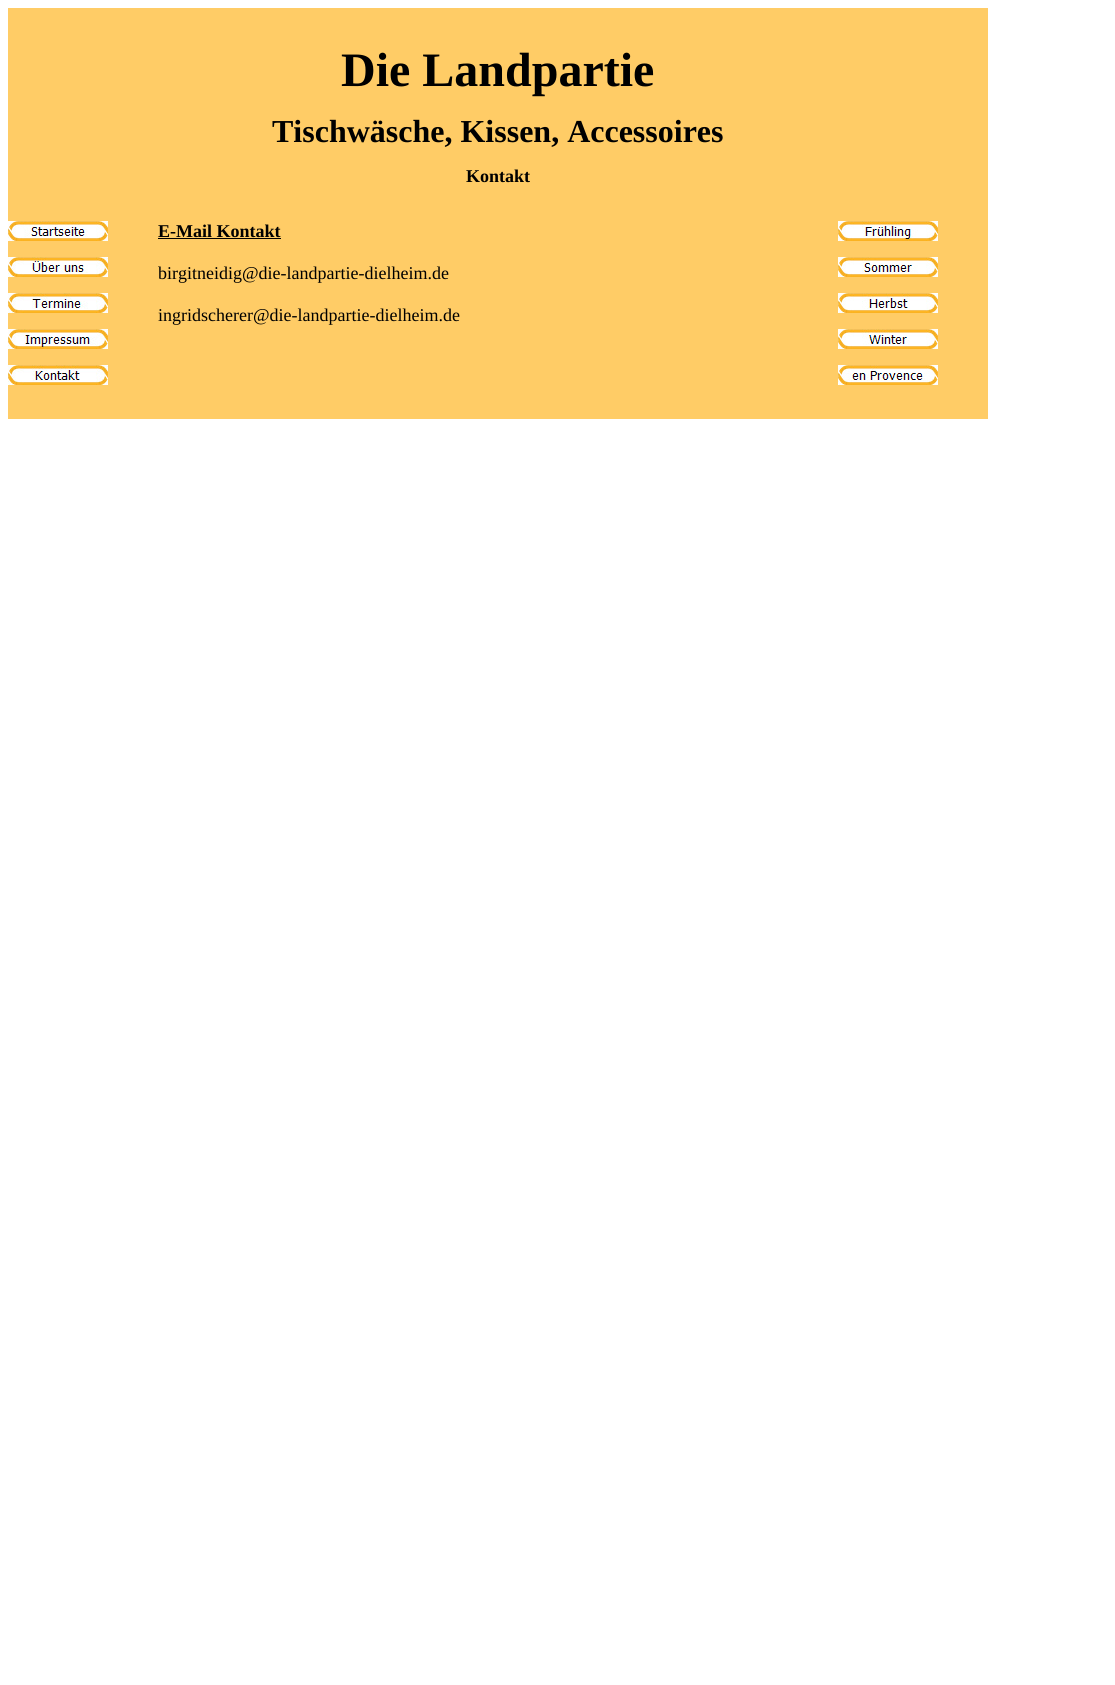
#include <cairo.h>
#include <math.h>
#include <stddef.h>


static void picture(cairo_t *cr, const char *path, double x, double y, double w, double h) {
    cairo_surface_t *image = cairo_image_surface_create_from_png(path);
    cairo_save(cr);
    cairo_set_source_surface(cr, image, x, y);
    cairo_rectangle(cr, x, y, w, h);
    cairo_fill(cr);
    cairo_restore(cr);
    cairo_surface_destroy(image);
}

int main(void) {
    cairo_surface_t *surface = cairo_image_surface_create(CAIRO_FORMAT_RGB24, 1115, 1685);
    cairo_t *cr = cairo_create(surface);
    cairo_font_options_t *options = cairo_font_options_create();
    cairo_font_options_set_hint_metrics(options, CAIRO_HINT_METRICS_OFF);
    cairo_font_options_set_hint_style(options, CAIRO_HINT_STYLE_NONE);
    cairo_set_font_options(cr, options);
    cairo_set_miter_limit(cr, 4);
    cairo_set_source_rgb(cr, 1, 1, 1);
    cairo_paint(cr);
    cairo_set_source_rgb(cr, 1, 0.8, 0.4);
    cairo_rectangle(cr, 8, 8, 980, 411);
    cairo_fill(cr);
    cairo_select_font_face(cr, "Liberation Serif", CAIRO_FONT_SLANT_NORMAL, CAIRO_FONT_WEIGHT_BOLD);
    cairo_set_font_size(cr, 48);
    cairo_set_source_rgb(cr, 0, 0, 0);
    cairo_move_to(cr, 341, 86);
    cairo_show_text(cr, "Die Landpartie");
    cairo_set_font_size(cr, 32);
    cairo_move_to(cr, 272, 142);
    cairo_show_text(cr, "Tischwäsche, Kissen, Accessoires");
    cairo_set_font_size(cr, 18);
    cairo_move_to(cr, 466, 182);
    cairo_show_text(cr, "Kontakt");
    picture(cr, "img1.png", 8, 221, 100, 20);
    picture(cr, "img2.png", 8, 257, 100, 20);
    picture(cr, "img3.png", 8, 293, 100, 20);
    picture(cr, "img4.png", 8, 329, 100, 20);
    picture(cr, "img5.png", 8, 365, 100, 20);
    cairo_move_to(cr, 158, 237);
    cairo_show_text(cr, "E-Mail Kontakt");
    cairo_rectangle(cr, 158, 238, 123, 1);
    cairo_fill(cr);
    cairo_select_font_face(cr, "Liberation Serif", CAIRO_FONT_SLANT_NORMAL, CAIRO_FONT_WEIGHT_NORMAL);
    cairo_move_to(cr, 158, 279);
    cairo_show_text(cr, "birgitneidig@die-landpartie-dielheim.de");
    cairo_move_to(cr, 158, 321);
    cairo_show_text(cr, "ingridscherer@die-landpartie-dielheim.de");
    picture(cr, "img6.png", 838, 221, 100, 20);
    picture(cr, "img7.png", 838, 257, 100, 20);
    picture(cr, "img8.png", 838, 293, 100, 20);
    picture(cr, "img9.png", 838, 329, 100, 20);
    picture(cr, "img10.png", 838, 365, 100, 20);
    cairo_surface_write_to_png(surface, "page.png");
    cairo_font_options_destroy(options);
    cairo_destroy(cr);
    cairo_surface_destroy(surface);
    return 0;
}
